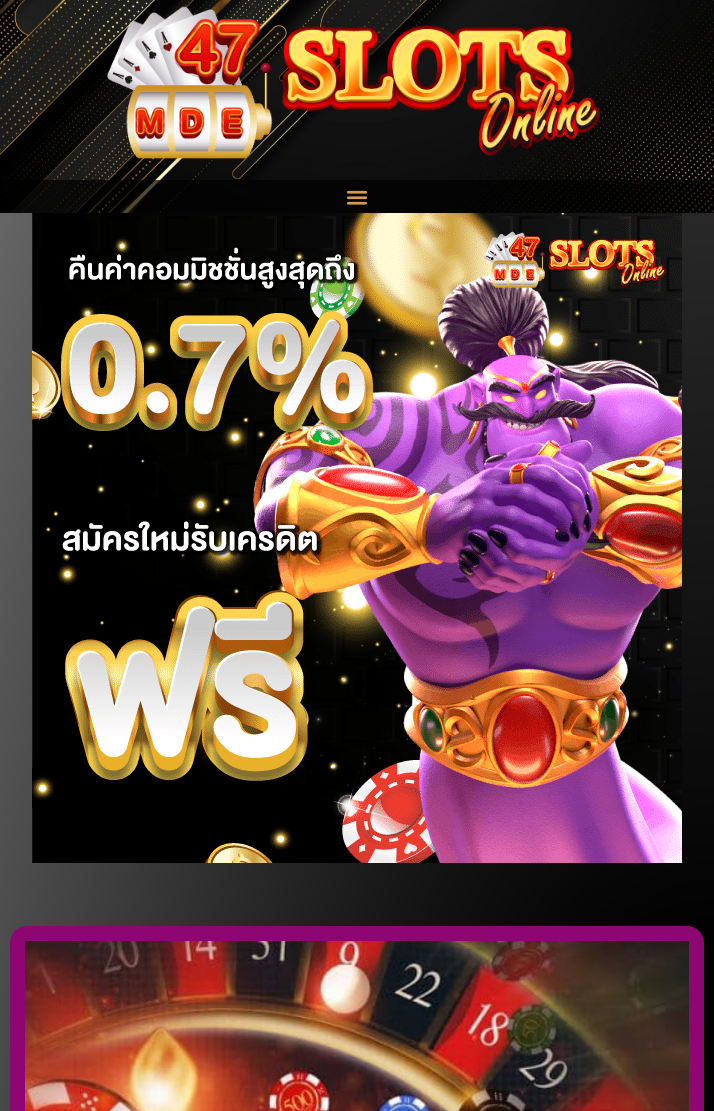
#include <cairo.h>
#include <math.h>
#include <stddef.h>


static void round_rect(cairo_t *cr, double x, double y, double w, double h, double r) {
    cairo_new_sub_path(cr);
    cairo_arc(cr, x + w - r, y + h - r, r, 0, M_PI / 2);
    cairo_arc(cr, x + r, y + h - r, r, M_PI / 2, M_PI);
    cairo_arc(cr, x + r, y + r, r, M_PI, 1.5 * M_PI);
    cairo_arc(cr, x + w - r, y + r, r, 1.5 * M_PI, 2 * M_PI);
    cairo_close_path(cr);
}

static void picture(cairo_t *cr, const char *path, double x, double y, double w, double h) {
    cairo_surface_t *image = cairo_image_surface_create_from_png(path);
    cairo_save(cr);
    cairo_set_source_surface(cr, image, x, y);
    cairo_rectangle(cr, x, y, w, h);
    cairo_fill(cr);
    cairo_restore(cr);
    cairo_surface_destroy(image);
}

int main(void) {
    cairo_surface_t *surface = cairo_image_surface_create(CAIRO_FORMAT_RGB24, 714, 1111);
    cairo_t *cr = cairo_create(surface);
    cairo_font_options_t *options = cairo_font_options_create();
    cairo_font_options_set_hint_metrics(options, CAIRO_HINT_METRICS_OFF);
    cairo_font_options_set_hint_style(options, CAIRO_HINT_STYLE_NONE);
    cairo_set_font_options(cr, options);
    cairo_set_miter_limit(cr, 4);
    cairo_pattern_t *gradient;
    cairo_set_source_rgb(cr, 1, 1, 1);
    cairo_paint(cr);
    gradient = cairo_pattern_create_radial(0, 0, 0, 0, 0, 1);
    cairo_pattern_set_matrix(gradient, &(cairo_matrix_t){1.0 / 1010, 0, 0, 1.0 / 3592, -1.0 * 714 / 1010, -1.0 * 2540 / 3592});
    cairo_pattern_add_color_stop_rgba(gradient, 0.44, 0, 0, 0, 1);
    cairo_pattern_add_color_stop_rgba(gradient, 1, 0.427, 0.427, 0.427, 1);
    cairo_set_source(cr, gradient);
    cairo_pattern_destroy(gradient);
    cairo_rectangle(cr, 0, 212, 714, 899);
    cairo_fill(cr);
    picture(cr, "img1.png", 0, 0, 714, 213);
    picture(cr, "img2.png", 107, 6, 494, 153);
    cairo_set_source_rgba(cr, 0, 0, 0, 0.68);
    cairo_rectangle(cr, 0, 180, 714, 33);
    cairo_fill(cr);
    picture(cr, "img3.png", 346, 190, 22, 15);
    picture(cr, "img4.png", 32, 213, 650, 650);
    cairo_set_source_rgb(cr, 0.553, 0.027, 0.447);
    round_rect(cr, 10, 926, 694, 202, 17);
    cairo_fill(cr);
    picture(cr, "img5.png", 25, 941, 664, 170);
    cairo_surface_write_to_png(surface, "page.png");
    cairo_font_options_destroy(options);
    cairo_destroy(cr);
    cairo_surface_destroy(surface);
    return 0;
}
